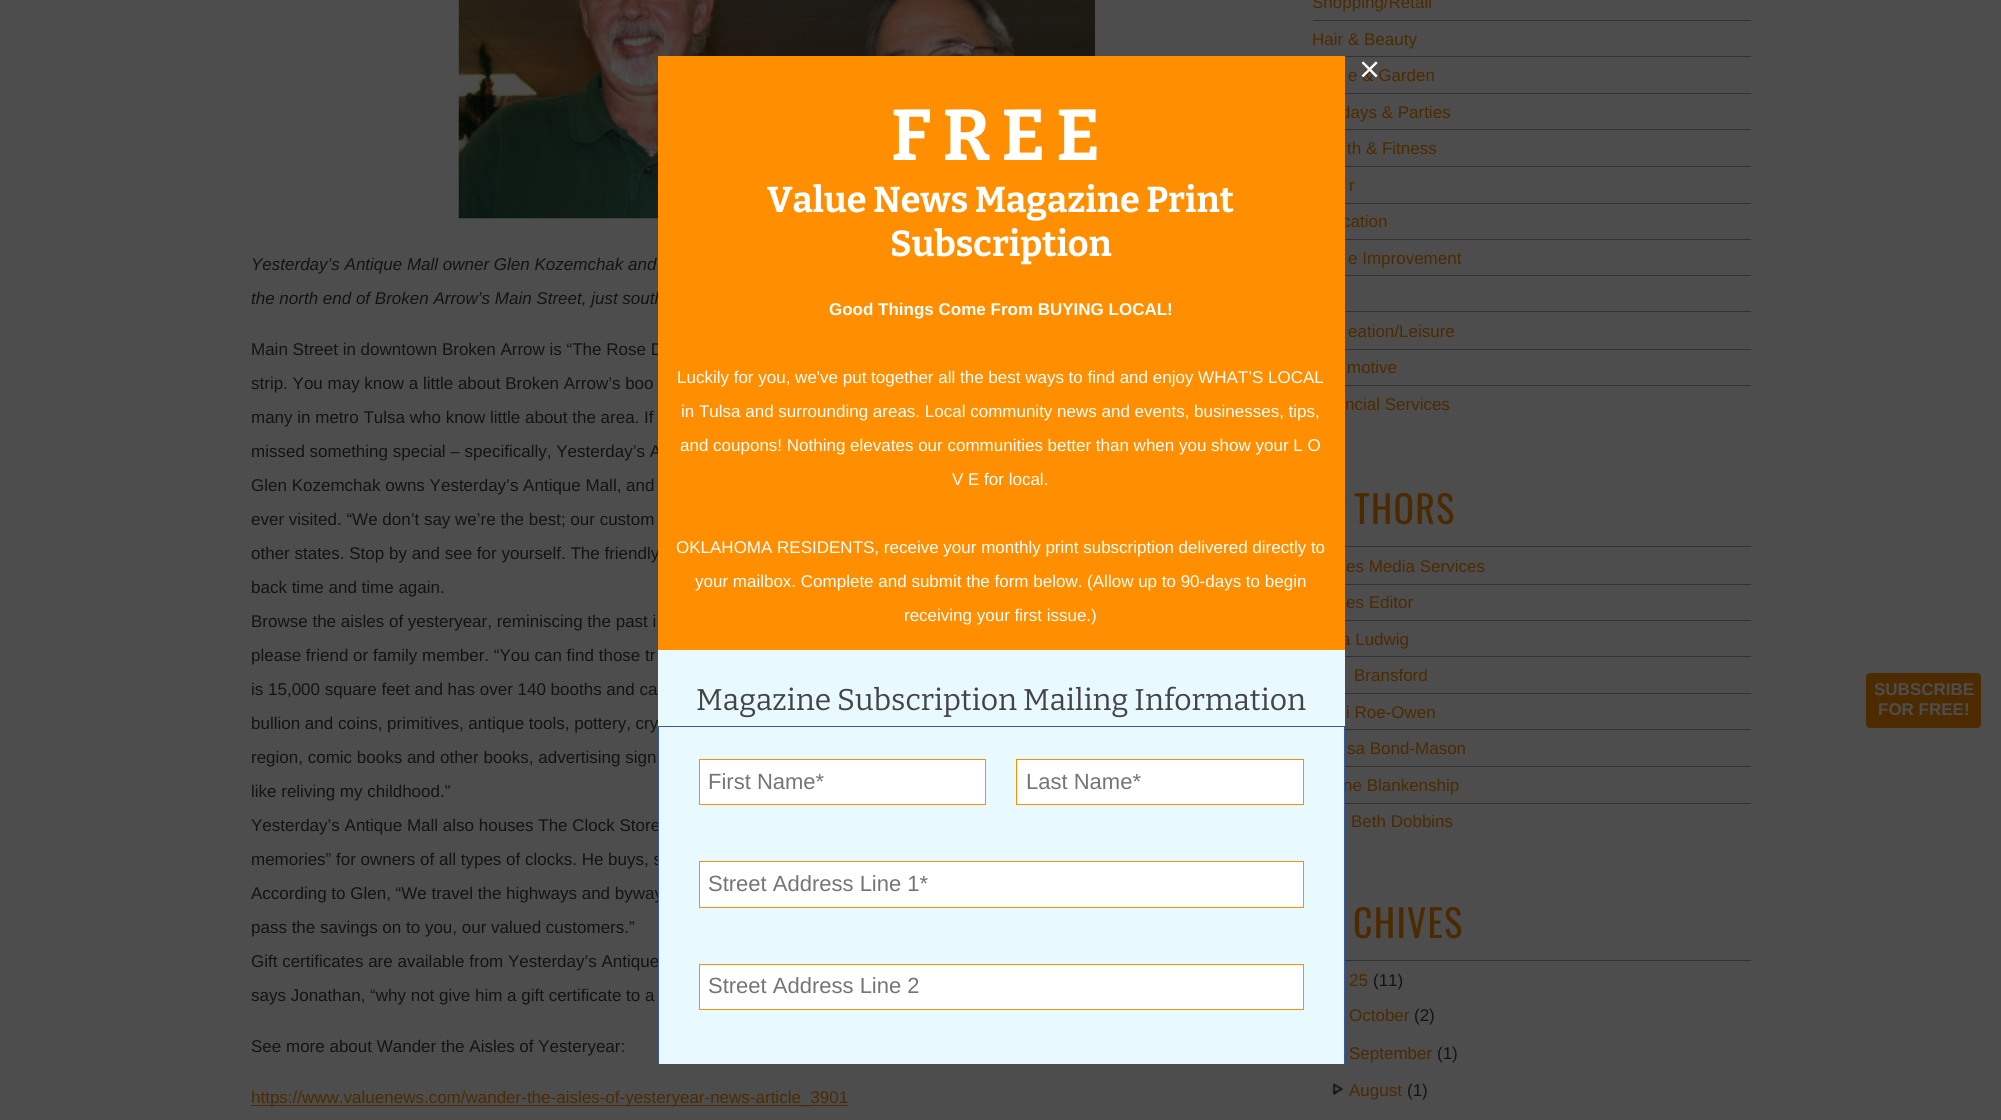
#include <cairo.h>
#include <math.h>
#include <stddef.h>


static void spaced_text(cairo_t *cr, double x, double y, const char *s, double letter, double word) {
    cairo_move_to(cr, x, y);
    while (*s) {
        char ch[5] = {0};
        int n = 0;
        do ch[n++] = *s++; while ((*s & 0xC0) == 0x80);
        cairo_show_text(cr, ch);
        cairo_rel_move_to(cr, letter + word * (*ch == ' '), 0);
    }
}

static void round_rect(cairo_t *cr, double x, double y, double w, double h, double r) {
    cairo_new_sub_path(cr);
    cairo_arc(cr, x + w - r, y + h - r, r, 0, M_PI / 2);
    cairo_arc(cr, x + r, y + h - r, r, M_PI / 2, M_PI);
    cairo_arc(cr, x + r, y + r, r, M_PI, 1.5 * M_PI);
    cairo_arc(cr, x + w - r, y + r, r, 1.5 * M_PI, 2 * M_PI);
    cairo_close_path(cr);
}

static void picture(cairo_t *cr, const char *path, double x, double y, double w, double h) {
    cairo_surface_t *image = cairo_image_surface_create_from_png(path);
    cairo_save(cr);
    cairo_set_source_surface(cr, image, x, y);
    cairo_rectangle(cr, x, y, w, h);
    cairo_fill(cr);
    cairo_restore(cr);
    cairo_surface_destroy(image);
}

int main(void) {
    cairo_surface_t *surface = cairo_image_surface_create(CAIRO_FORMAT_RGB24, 2001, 1120);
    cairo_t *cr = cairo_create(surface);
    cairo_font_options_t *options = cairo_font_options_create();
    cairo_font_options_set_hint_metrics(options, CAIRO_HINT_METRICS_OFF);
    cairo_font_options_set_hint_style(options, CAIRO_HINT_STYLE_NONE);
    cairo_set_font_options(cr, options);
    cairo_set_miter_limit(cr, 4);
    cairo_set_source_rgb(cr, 0.302, 0.302, 0.302);
    cairo_paint(cr);
    picture(cr, "img1.png", 458, 0, 637, 219);
    cairo_select_font_face(cr, "Liberation Sans", CAIRO_FONT_SLANT_ITALIC, CAIRO_FONT_WEIGHT_NORMAL);
    cairo_set_font_size(cr, 17);
    cairo_set_source_rgb(cr, 0.078, 0.078, 0.078);
    cairo_move_to(cr, 251, 270);
    cairo_show_text(cr, "Yesterday’s Antique Mall owner Glen Kozemchak and");
    cairo_move_to(cr, 251, 304);
    cairo_show_text(cr, "the north end of Broken Arrow’s Main Street, just south");
    cairo_select_font_face(cr, "Liberation Sans", CAIRO_FONT_SLANT_NORMAL, CAIRO_FONT_WEIGHT_NORMAL);
    cairo_move_to(cr, 251, 355);
    cairo_show_text(cr, "Main Street in downtown Broken Arrow is “The Rose D");
    cairo_move_to(cr, 251, 389);
    cairo_show_text(cr, "strip. You may know a little about Broken Arrow’s boo");
    cairo_move_to(cr, 251, 423);
    cairo_show_text(cr, "many in metro Tulsa who know little about the area. If");
    cairo_move_to(cr, 251, 457);
    cairo_show_text(cr, "missed something special – specifically, Yesterday’s A");
    cairo_move_to(cr, 251, 491);
    cairo_show_text(cr, "Glen Kozemchak owns Yesterday’s Antique Mall, and");
    cairo_move_to(cr, 251, 525);
    cairo_show_text(cr, "ever visited. “We don’t say we’re the best; our custom");
    cairo_move_to(cr, 251, 559);
    cairo_show_text(cr, "other states. Stop by and see for yourself. The friendly");
    cairo_move_to(cr, 251, 593);
    cairo_show_text(cr, "back time and time again.");
    cairo_move_to(cr, 251, 627);
    cairo_show_text(cr, "Browse the aisles of yesteryear, reminiscing the past i");
    cairo_move_to(cr, 251, 661);
    cairo_show_text(cr, "please friend or family member. “You can find those tr");
    cairo_move_to(cr, 251, 695);
    cairo_show_text(cr, "is 15,000 square feet and has over 140 booths and ca");
    cairo_move_to(cr, 251, 729);
    cairo_show_text(cr, "bullion and coins, primitives, antique tools, pottery, cry");
    cairo_move_to(cr, 251, 763);
    cairo_show_text(cr, "region, comic books and other books, advertising sign");
    cairo_move_to(cr, 251, 797);
    cairo_show_text(cr, "like reliving my childhood.”");
    cairo_move_to(cr, 251, 831);
    cairo_show_text(cr, "Yesterday’s Antique Mall also houses The Clock Store");
    cairo_move_to(cr, 251, 865);
    cairo_show_text(cr, "memories” for owners of all types of clocks. He buys, s");
    cairo_move_to(cr, 251, 899);
    cairo_show_text(cr, "According to Glen, “We travel the highways and byway");
    cairo_move_to(cr, 251, 933);
    cairo_show_text(cr, "pass the savings on to you, our valued customers.”");
    cairo_move_to(cr, 251, 967);
    cairo_show_text(cr, "Gift certificates are available from Yesterday’s Antique");
    cairo_move_to(cr, 251, 1001);
    cairo_show_text(cr, "says Jonathan, “why not give him a gift certificate to a");
    cairo_move_to(cr, 251, 1052);
    cairo_show_text(cr, "See more about Wander the Aisles of Yesteryear:");
    cairo_set_source_rgb(cr, 0.298, 0.165, 0);
    cairo_rectangle(cr, 251, 1105, 597, 1);
    cairo_fill(cr);
    cairo_move_to(cr, 251, 1103);
    cairo_show_text(cr, "https://www.valuenews.com/wander-the-aisles-of-yesteryear-news-article_3901");
    cairo_move_to(cr, 1312, 8);
    cairo_show_text(cr, "Shopping/Retail");
    cairo_set_source_rgb(cr, 0.2, 0.2, 0.2);
    cairo_rectangle(cr, 1313, 20, 438, 1);
    cairo_fill(cr);
    cairo_set_source_rgb(cr, 0.298, 0.165, 0);
    cairo_move_to(cr, 1312, 45);
    cairo_show_text(cr, "Hair & Beauty");
    cairo_set_source_rgb(cr, 0.2, 0.2, 0.2);
    cairo_rectangle(cr, 1345, 56, 406, 1);
    cairo_fill(cr);
    cairo_set_source_rgb(cr, 0.298, 0.165, 0);
    cairo_move_to(cr, 1348, 81);
    cairo_show_text(cr, "e & Garden");
    cairo_set_source_rgb(cr, 0.2, 0.2, 0.2);
    cairo_rectangle(cr, 1345, 93, 406, 1);
    cairo_fill(cr);
    cairo_set_source_rgb(cr, 0.298, 0.165, 0);
    cairo_move_to(cr, 1341, 118);
    cairo_show_text(cr, "days & Parties");
    cairo_set_source_rgb(cr, 0.2, 0.2, 0.2);
    cairo_rectangle(cr, 1345, 129, 406, 1);
    cairo_fill(cr);
    cairo_set_source_rgb(cr, 0.298, 0.165, 0);
    cairo_move_to(cr, 1347, 154);
    cairo_show_text(cr, "th & Fitness");
    cairo_set_source_rgb(cr, 0.2, 0.2, 0.2);
    cairo_rectangle(cr, 1345, 166, 406, 1);
    cairo_fill(cr);
    cairo_set_source_rgb(cr, 0.298, 0.165, 0);
    cairo_move_to(cr, 1349, 191);
    cairo_show_text(cr, "r");
    cairo_set_source_rgb(cr, 0.2, 0.2, 0.2);
    cairo_rectangle(cr, 1345, 203, 406, 1);
    cairo_fill(cr);
    cairo_set_source_rgb(cr, 0.298, 0.165, 0);
    cairo_move_to(cr, 1342, 227);
    cairo_show_text(cr, "cation");
    cairo_set_source_rgb(cr, 0.2, 0.2, 0.2);
    cairo_rectangle(cr, 1345, 239, 406, 1);
    cairo_fill(cr);
    cairo_set_source_rgb(cr, 0.298, 0.165, 0);
    cairo_move_to(cr, 1348, 264);
    cairo_show_text(cr, "e Improvement");
    cairo_set_source_rgb(cr, 0.2, 0.2, 0.2);
    cairo_rectangle(cr, 1345, 275, 406, 1);
    cairo_fill(cr);
    cairo_rectangle(cr, 1345, 311, 406, 1);
    cairo_fill(cr);
    cairo_set_source_rgb(cr, 0.298, 0.165, 0);
    cairo_move_to(cr, 1348, 337);
    cairo_show_text(cr, "eation/Leisure");
    cairo_set_source_rgb(cr, 0.2, 0.2, 0.2);
    cairo_rectangle(cr, 1345, 349, 406, 1);
    cairo_fill(cr);
    cairo_set_source_rgb(cr, 0.298, 0.165, 0);
    cairo_move_to(cr, 1347, 373);
    cairo_show_text(cr, "motive");
    cairo_set_source_rgb(cr, 0.2, 0.2, 0.2);
    cairo_rectangle(cr, 1345, 385, 406, 1);
    cairo_fill(cr);
    cairo_set_source_rgb(cr, 0.298, 0.165, 0);
    cairo_move_to(cr, 1345, 410);
    cairo_show_text(cr, "ncial Services");
    cairo_select_font_face(cr, "Oswald", CAIRO_FONT_SLANT_NORMAL, CAIRO_FONT_WEIGHT_NORMAL);
    cairo_set_font_size(cr, 38);
    spaced_text(cr, 1354, 524, "THORS", 1.25, 0);
    cairo_set_source_rgb(cr, 0.2, 0.2, 0.2);
    cairo_rectangle(cr, 1345, 546, 406, 1);
    cairo_fill(cr);
    cairo_select_font_face(cr, "Liberation Sans", CAIRO_FONT_SLANT_NORMAL, CAIRO_FONT_WEIGHT_NORMAL);
    cairo_set_font_size(cr, 17);
    cairo_set_source_rgb(cr, 0.298, 0.165, 0);
    cairo_move_to(cr, 1346, 572);
    cairo_show_text(cr, "es Media Services");
    cairo_set_source_rgb(cr, 0.2, 0.2, 0.2);
    cairo_rectangle(cr, 1345, 584, 406, 1);
    cairo_fill(cr);
    cairo_set_source_rgb(cr, 0.298, 0.165, 0);
    cairo_move_to(cr, 1346, 608);
    cairo_show_text(cr, "es Editor");
    cairo_set_source_rgb(cr, 0.2, 0.2, 0.2);
    cairo_rectangle(cr, 1345, 620, 406, 1);
    cairo_fill(cr);
    cairo_set_source_rgb(cr, 0.298, 0.165, 0);
    cairo_move_to(cr, 1341, 645);
    cairo_show_text(cr, "a Ludwig");
    cairo_set_source_rgb(cr, 0.2, 0.2, 0.2);
    cairo_rectangle(cr, 1345, 656, 406, 1);
    cairo_fill(cr);
    cairo_set_source_rgb(cr, 0.298, 0.165, 0);
    cairo_move_to(cr, 1354, 681);
    cairo_show_text(cr, "Bransford");
    cairo_set_source_rgb(cr, 0.2, 0.2, 0.2);
    cairo_rectangle(cr, 1345, 693, 406, 1);
    cairo_fill(cr);
    cairo_set_source_rgb(cr, 0.298, 0.165, 0);
    cairo_move_to(cr, 1346, 718);
    cairo_show_text(cr, "i Roe-Owen");
    cairo_set_source_rgb(cr, 0.2, 0.2, 0.2);
    cairo_rectangle(cr, 1345, 729, 406, 1);
    cairo_fill(cr);
    cairo_set_source_rgb(cr, 0.298, 0.165, 0);
    cairo_move_to(cr, 1347, 754);
    cairo_show_text(cr, "sa Bond-Mason");
    cairo_set_source_rgb(cr, 0.2, 0.2, 0.2);
    cairo_rectangle(cr, 1345, 766, 406, 1);
    cairo_fill(cr);
    cairo_set_source_rgb(cr, 0.298, 0.165, 0);
    cairo_move_to(cr, 1343, 791);
    cairo_show_text(cr, "ne Blankenship");
    cairo_set_source_rgb(cr, 0.2, 0.2, 0.2);
    cairo_rectangle(cr, 1345, 803, 406, 1);
    cairo_fill(cr);
    cairo_set_source_rgb(cr, 0.298, 0.165, 0);
    cairo_move_to(cr, 1351, 827);
    cairo_show_text(cr, "Beth Dobbins");
    cairo_select_font_face(cr, "Oswald", CAIRO_FONT_SLANT_NORMAL, CAIRO_FONT_WEIGHT_NORMAL);
    cairo_set_font_size(cr, 38);
    spaced_text(cr, 1353, 938, "CHIVES", 1.25, 0);
    cairo_set_source_rgb(cr, 0.2, 0.2, 0.2);
    cairo_rectangle(cr, 1345, 960, 406, 1);
    cairo_fill(cr);
    cairo_select_font_face(cr, "Liberation Sans", CAIRO_FONT_SLANT_NORMAL, CAIRO_FONT_WEIGHT_NORMAL);
    cairo_set_font_size(cr, 17);
    cairo_set_source_rgb(cr, 0.298, 0.165, 0);
    cairo_move_to(cr, 1349, 986);
    cairo_show_text(cr, "25");
    cairo_set_source_rgb(cr, 0.078, 0.078, 0.078);
    cairo_move_to(cr, 1373, 986);
    cairo_show_text(cr, "(11)");
    cairo_set_source_rgb(cr, 0.298, 0.165, 0);
    cairo_move_to(cr, 1349, 1021);
    cairo_show_text(cr, "October");
    cairo_set_source_rgb(cr, 0.078, 0.078, 0.078);
    cairo_move_to(cr, 1414, 1021);
    cairo_show_text(cr, "(2)");
    cairo_set_source_rgb(cr, 0.298, 0.165, 0);
    cairo_move_to(cr, 1349, 1059);
    cairo_show_text(cr, "September");
    cairo_set_source_rgb(cr, 0.078, 0.078, 0.078);
    cairo_move_to(cr, 1437, 1059);
    cairo_show_text(cr, "(1)");
    picture(cr, "img2.png", 1332, 1083, 12, 13);
    cairo_set_source_rgb(cr, 0.298, 0.165, 0);
    cairo_move_to(cr, 1349, 1096);
    cairo_show_text(cr, "August");
    cairo_set_source_rgb(cr, 0.078, 0.078, 0.078);
    cairo_move_to(cr, 1407, 1096);
    cairo_show_text(cr, "(1)");
    cairo_set_source_rgb(cr, 0.91, 0.973, 1);
    cairo_rectangle(cr, 658, 650, 687, 414);
    cairo_fill(cr);
    picture(cr, "img3.png", 1361, 61, 17, 17);
    cairo_set_source_rgb(cr, 1, 0.557, 0.004);
    cairo_rectangle(cr, 658, 56, 687, 219);
    cairo_fill(cr);
    cairo_select_font_face(cr, "Bitter", CAIRO_FONT_SLANT_NORMAL, CAIRO_FONT_WEIGHT_BOLD);
    cairo_set_font_size(cr, 72);
    cairo_set_source_rgb(cr, 1, 1, 1);
    spaced_text(cr, 891, 160, "FREE", 11, 0);
    cairo_set_font_size(cr, 36);
    cairo_move_to(cr, 767, 212);
    cairo_show_text(cr, "Value News Magazine Print");
    cairo_move_to(cr, 890, 256);
    cairo_show_text(cr, "Subscription");
    cairo_set_source_rgb(cr, 1, 0.557, 0);
    cairo_rectangle(cr, 658, 275, 687, 375);
    cairo_fill(cr);
    cairo_select_font_face(cr, "Liberation Sans", CAIRO_FONT_SLANT_NORMAL, CAIRO_FONT_WEIGHT_BOLD);
    cairo_set_font_size(cr, 17);
    cairo_set_source_rgb(cr, 1, 1, 1);
    cairo_move_to(cr, 829, 315);
    cairo_show_text(cr, "Good Things Come From BUYING LOCAL!");
    cairo_select_font_face(cr, "Liberation Sans", CAIRO_FONT_SLANT_NORMAL, CAIRO_FONT_WEIGHT_NORMAL);
    cairo_move_to(cr, 677, 383);
    cairo_show_text(cr, "Luckily for you, we've put together all the best ways to find and enjoy WHAT’S LOCAL");
    cairo_move_to(cr, 681, 417);
    cairo_show_text(cr, "in Tulsa and surrounding areas. Local community news and events, businesses, tips,");
    cairo_move_to(cr, 680, 451);
    cairo_show_text(cr, "and coupons! Nothing elevates our communities better than when you show your L O");
    cairo_move_to(cr, 952, 485);
    cairo_show_text(cr, "V E for local.");
    cairo_move_to(cr, 676, 553);
    cairo_show_text(cr, "OKLAHOMA RESIDENTS, receive your monthly print subscription delivered directly to");
    cairo_move_to(cr, 695, 587);
    cairo_show_text(cr, "your mailbox. Complete and submit the form below. (Allow up to 90-days to begin");
    cairo_move_to(cr, 904, 621);
    cairo_show_text(cr, "receiving your first issue.)");
    cairo_select_font_face(cr, "Bitter", CAIRO_FONT_SLANT_NORMAL, CAIRO_FONT_WEIGHT_NORMAL);
    cairo_set_font_size(cr, 30);
    cairo_set_source_rgb(cr, 0.267, 0.267, 0.267);
    cairo_move_to(cr, 696, 710);
    cairo_show_text(cr, "Magazine Subscription Mailing Information");
    cairo_save(cr);
    cairo_rectangle(cr, 658, 56, 687, 1008);
    cairo_clip(cr);
    cairo_rectangle(cr, 658.5, 726.5, 686, 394);
    cairo_set_source_rgb(cr, 0.212, 0.361, 0.643);
    cairo_set_line_width(cr, 1);
    cairo_stroke(cr);
    cairo_restore(cr);
    cairo_set_source_rgb(cr, 1, 1, 1);
    cairo_rectangle(cr, 699.5, 759.5, 286, 45);
    cairo_fill_preserve(cr);
    cairo_set_source_rgb(cr, 1, 0.557, 0.004);
    cairo_set_line_width(cr, 1);
    cairo_stroke(cr);
    cairo_select_font_face(cr, "Liberation Sans", CAIRO_FONT_SLANT_NORMAL, CAIRO_FONT_WEIGHT_NORMAL);
    cairo_set_font_size(cr, 22);
    cairo_set_source_rgb(cr, 0.459, 0.459, 0.459);
    cairo_move_to(cr, 708, 789);
    cairo_show_text(cr, "First Name*");
    cairo_set_source_rgb(cr, 1, 1, 1);
    cairo_rectangle(cr, 1016.5, 759.5, 287, 45);
    cairo_fill_preserve(cr);
    cairo_set_source_rgb(cr, 1, 0.557, 0.004);
    cairo_stroke(cr);
    cairo_set_source_rgb(cr, 0.459, 0.459, 0.459);
    cairo_move_to(cr, 1026, 789);
    cairo_show_text(cr, "Last Name*");
    cairo_set_source_rgb(cr, 1, 1, 1);
    cairo_rectangle(cr, 699.5, 861.5, 604, 46);
    cairo_fill_preserve(cr);
    cairo_set_source_rgb(cr, 1, 0.557, 0.004);
    cairo_stroke(cr);
    cairo_set_source_rgb(cr, 0.459, 0.459, 0.459);
    cairo_move_to(cr, 708, 891);
    cairo_show_text(cr, "Street Address Line 1*");
    cairo_set_source_rgb(cr, 1, 1, 1);
    cairo_rectangle(cr, 699.5, 964.5, 604, 45);
    cairo_fill_preserve(cr);
    cairo_set_source_rgb(cr, 1, 0.557, 0.004);
    cairo_stroke(cr);
    cairo_set_source_rgb(cr, 0.459, 0.459, 0.459);
    cairo_move_to(cr, 708, 993);
    cairo_show_text(cr, "Street Address Line 2");
    cairo_set_source_rgb(cr, 0.302, 0.169, 0);
    round_rect(cr, 1866, 673, 115, 55, 4);
    cairo_fill(cr);
    cairo_select_font_face(cr, "Liberation Sans", CAIRO_FONT_SLANT_NORMAL, CAIRO_FONT_WEIGHT_BOLD);
    cairo_set_font_size(cr, 17);
    cairo_set_source_rgb(cr, 0.302, 0.302, 0.302);
    cairo_move_to(cr, 1874, 695);
    cairo_show_text(cr, "SUBSCRIBE");
    cairo_move_to(cr, 1878, 715);
    cairo_show_text(cr, "FOR FREE!");
    cairo_surface_write_to_png(surface, "page.png");
    cairo_font_options_destroy(options);
    cairo_destroy(cr);
    cairo_surface_destroy(surface);
    return 0;
}
